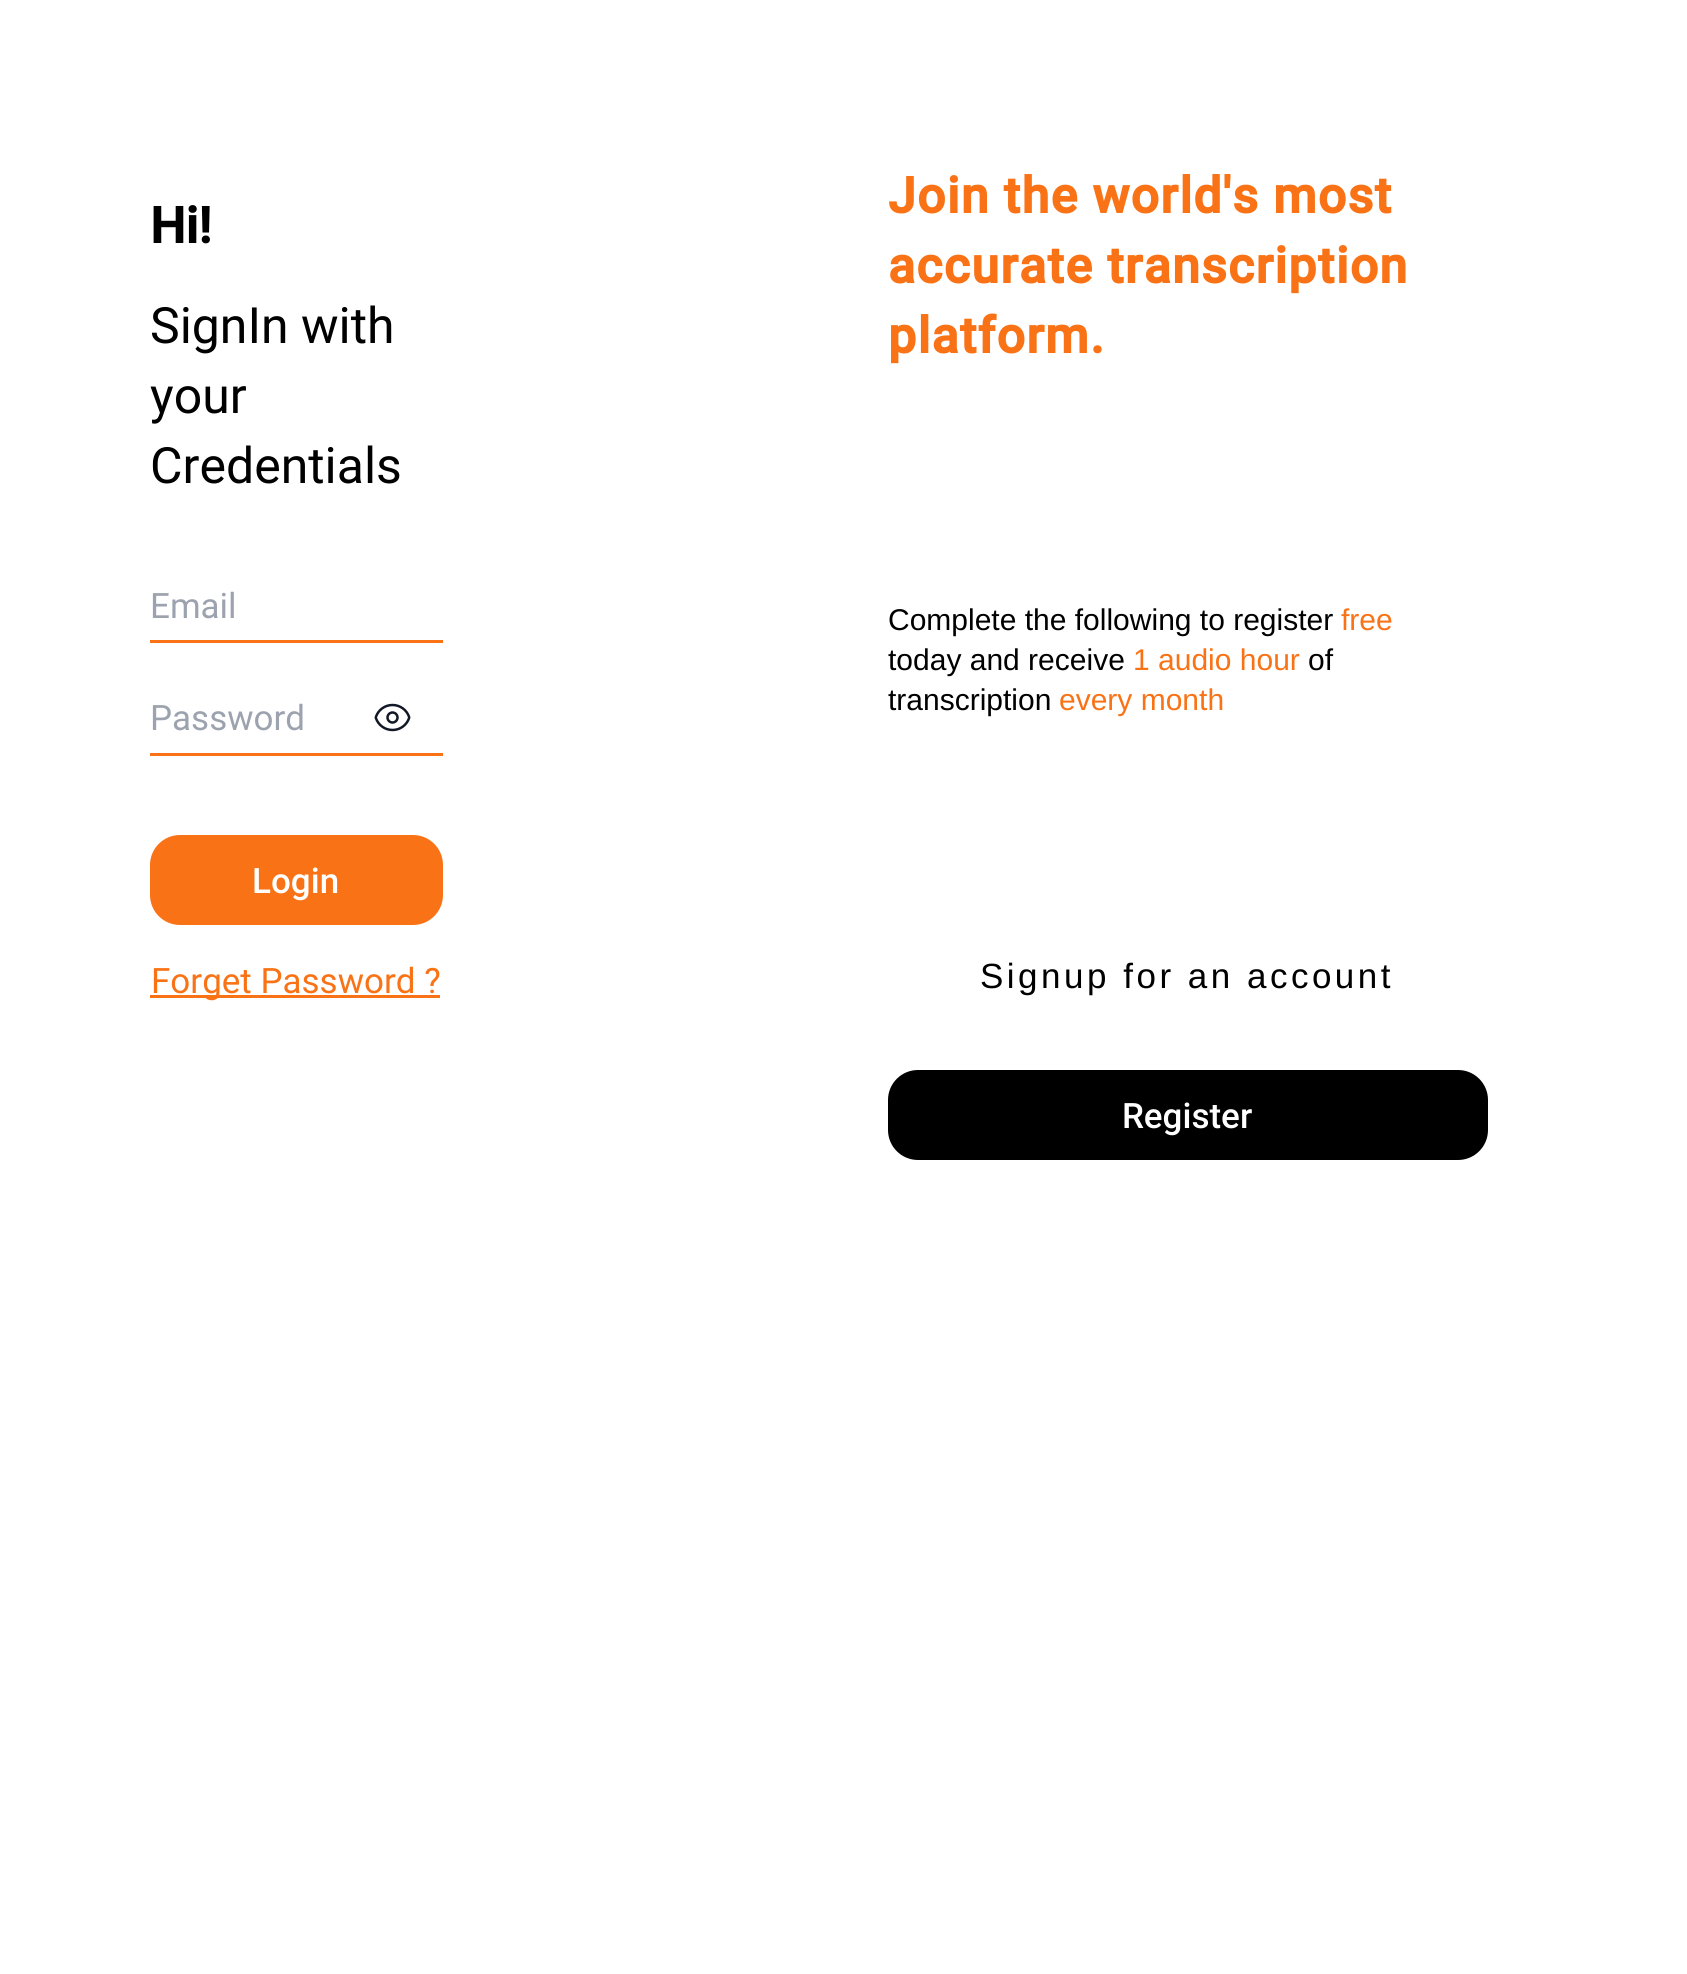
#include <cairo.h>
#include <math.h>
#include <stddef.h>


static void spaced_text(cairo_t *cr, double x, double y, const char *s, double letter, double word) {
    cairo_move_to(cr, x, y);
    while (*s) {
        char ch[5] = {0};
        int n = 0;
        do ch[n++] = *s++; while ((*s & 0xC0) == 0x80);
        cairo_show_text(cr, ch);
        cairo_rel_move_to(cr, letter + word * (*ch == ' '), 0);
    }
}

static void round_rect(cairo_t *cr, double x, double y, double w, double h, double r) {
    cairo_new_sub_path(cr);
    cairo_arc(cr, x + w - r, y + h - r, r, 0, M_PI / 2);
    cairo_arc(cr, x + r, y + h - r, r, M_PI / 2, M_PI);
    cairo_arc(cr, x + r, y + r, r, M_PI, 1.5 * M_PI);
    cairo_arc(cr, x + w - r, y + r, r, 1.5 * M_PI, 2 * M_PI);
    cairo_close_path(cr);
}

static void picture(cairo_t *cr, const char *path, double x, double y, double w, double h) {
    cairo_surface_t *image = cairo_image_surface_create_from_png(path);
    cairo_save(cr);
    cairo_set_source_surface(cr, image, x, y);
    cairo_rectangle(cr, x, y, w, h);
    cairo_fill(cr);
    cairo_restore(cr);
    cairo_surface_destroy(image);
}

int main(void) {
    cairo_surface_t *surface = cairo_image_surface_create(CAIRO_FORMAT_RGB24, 1687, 1974);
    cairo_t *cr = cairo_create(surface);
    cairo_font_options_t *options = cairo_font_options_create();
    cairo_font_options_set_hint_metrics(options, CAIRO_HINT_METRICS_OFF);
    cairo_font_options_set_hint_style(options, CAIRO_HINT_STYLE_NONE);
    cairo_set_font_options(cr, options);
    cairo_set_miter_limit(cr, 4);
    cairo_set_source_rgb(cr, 1, 1, 1);
    cairo_paint(cr);
    cairo_select_font_face(cr, "Roboto", CAIRO_FONT_SLANT_NORMAL, CAIRO_FONT_WEIGHT_BOLD);
    cairo_set_font_size(cr, 50);
    cairo_set_source_rgb(cr, 0, 0, 0);
    cairo_move_to(cr, 150, 243);
    cairo_show_text(cr, "Hi!");
    cairo_select_font_face(cr, "Roboto", CAIRO_FONT_SLANT_NORMAL, CAIRO_FONT_WEIGHT_NORMAL);
    cairo_move_to(cr, 150, 343);
    cairo_show_text(cr, "SignIn with");
    cairo_move_to(cr, 150, 413);
    cairo_show_text(cr, "your");
    cairo_move_to(cr, 150, 483);
    cairo_show_text(cr, "Credentials");
    cairo_set_source_rgb(cr, 0.976, 0.451, 0.086);
    cairo_rectangle(cr, 150, 640, 293, 3);
    cairo_fill(cr);
    cairo_set_font_size(cr, 35);
    cairo_set_source_rgb(cr, 0.612, 0.639, 0.686);
    cairo_move_to(cr, 150, 618);
    cairo_show_text(cr, "Email");
    cairo_set_source_rgb(cr, 0.976, 0.451, 0.086);
    cairo_rectangle(cr, 150, 753, 293, 3);
    cairo_fill(cr);
    cairo_set_source_rgb(cr, 0.612, 0.639, 0.686);
    cairo_move_to(cr, 150, 730);
    cairo_show_text(cr, "Password");
    picture(cr, "img1.png", 374, 703, 37, 29);
    cairo_set_source_rgb(cr, 0.976, 0.451, 0.086);
    round_rect(cr, 150, 835, 293, 90, 30);
    cairo_fill(cr);
    cairo_select_font_face(cr, "Roboto Medium", CAIRO_FONT_SLANT_NORMAL, CAIRO_FONT_WEIGHT_NORMAL);
    cairo_set_source_rgb(cr, 1, 1, 1);
    cairo_move_to(cr, 252, 893);
    cairo_show_text(cr, "Login");
    cairo_set_source_rgb(cr, 0.976, 0.451, 0.086);
    cairo_rectangle(cr, 150, 995, 290, 3);
    cairo_fill(cr);
    cairo_select_font_face(cr, "Roboto", CAIRO_FONT_SLANT_NORMAL, CAIRO_FONT_WEIGHT_NORMAL);
    cairo_move_to(cr, 151, 993);
    cairo_show_text(cr, "Forget Password ?");
    cairo_select_font_face(cr, "Roboto", CAIRO_FONT_SLANT_NORMAL, CAIRO_FONT_WEIGHT_BOLD);
    cairo_set_font_size(cr, 50);
    spaced_text(cr, 888, 213, "Join the world's most", 1.25, 0);
    spaced_text(cr, 888, 283, "accurate transcription", 1.25, 0);
    spaced_text(cr, 888, 353, "platform.", 1.25, 0);
    cairo_select_font_face(cr, "Liberation Sans", CAIRO_FONT_SLANT_NORMAL, CAIRO_FONT_WEIGHT_NORMAL);
    cairo_set_font_size(cr, 30);
    cairo_set_source_rgb(cr, 0, 0, 0);
    cairo_move_to(cr, 888, 630);
    cairo_show_text(cr, "Complete the following to register");
    cairo_set_source_rgb(cr, 0.976, 0.451, 0.086);
    cairo_move_to(cr, 1341, 630);
    cairo_show_text(cr, "free");
    cairo_set_source_rgb(cr, 0, 0, 0);
    cairo_move_to(cr, 888, 670);
    cairo_show_text(cr, "today and receive");
    cairo_set_source_rgb(cr, 0.976, 0.451, 0.086);
    cairo_move_to(cr, 1133, 670);
    cairo_show_text(cr, "1 audio hour");
    cairo_set_source_rgb(cr, 0, 0, 0);
    cairo_move_to(cr, 1308, 670);
    cairo_show_text(cr, "of");
    cairo_move_to(cr, 888, 710);
    cairo_show_text(cr, "transcription");
    cairo_set_source_rgb(cr, 0.976, 0.451, 0.086);
    cairo_move_to(cr, 1059, 710);
    cairo_show_text(cr, "every month");
    cairo_set_font_size(cr, 35);
    cairo_set_source_rgb(cr, 0, 0, 0);
    spaced_text(cr, 980, 988, "Signup for an account", 3.5, 0);
    round_rect(cr, 888, 1070, 600, 90, 30);
    cairo_fill(cr);
    cairo_select_font_face(cr, "Roboto Medium", CAIRO_FONT_SLANT_NORMAL, CAIRO_FONT_WEIGHT_NORMAL);
    cairo_set_source_rgb(cr, 1, 1, 1);
    cairo_move_to(cr, 1122, 1128);
    cairo_show_text(cr, "Register");
    cairo_surface_write_to_png(surface, "page.png");
    cairo_font_options_destroy(options);
    cairo_destroy(cr);
    cairo_surface_destroy(surface);
    return 0;
}
